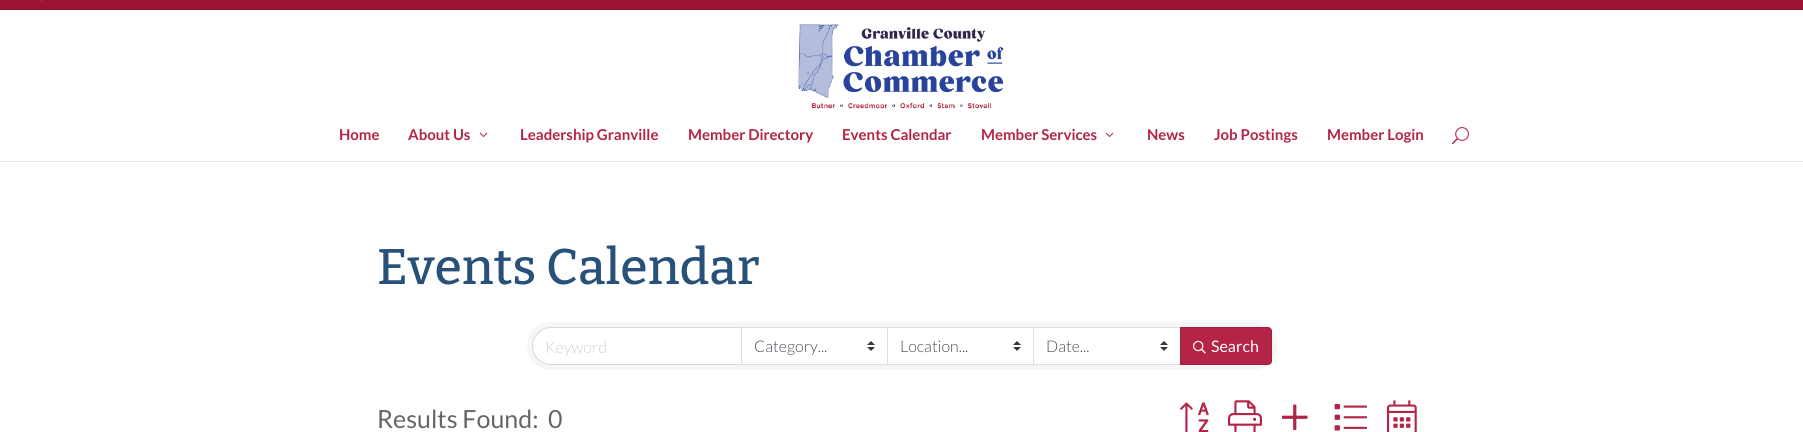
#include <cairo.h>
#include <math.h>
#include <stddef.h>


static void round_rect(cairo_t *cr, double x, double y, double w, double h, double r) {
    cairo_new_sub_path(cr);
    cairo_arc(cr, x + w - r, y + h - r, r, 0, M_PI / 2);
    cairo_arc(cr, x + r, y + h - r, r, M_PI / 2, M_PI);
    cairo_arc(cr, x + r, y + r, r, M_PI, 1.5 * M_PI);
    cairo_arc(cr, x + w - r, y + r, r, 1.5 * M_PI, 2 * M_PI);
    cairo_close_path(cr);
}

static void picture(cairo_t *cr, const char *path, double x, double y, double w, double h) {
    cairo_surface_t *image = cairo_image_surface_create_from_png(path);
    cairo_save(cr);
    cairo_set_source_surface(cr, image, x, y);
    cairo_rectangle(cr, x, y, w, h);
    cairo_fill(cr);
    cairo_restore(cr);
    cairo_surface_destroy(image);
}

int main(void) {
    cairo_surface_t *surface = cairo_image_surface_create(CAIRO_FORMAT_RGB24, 1803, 432);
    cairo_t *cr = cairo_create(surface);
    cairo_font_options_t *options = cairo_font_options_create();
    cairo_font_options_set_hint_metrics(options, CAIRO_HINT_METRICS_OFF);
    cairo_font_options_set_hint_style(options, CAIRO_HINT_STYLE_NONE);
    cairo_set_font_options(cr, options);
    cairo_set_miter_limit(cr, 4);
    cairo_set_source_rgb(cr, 1, 1, 1);
    cairo_paint(cr);
    cairo_set_source_rgb(cr, 0.608, 0.082, 0.204);
    cairo_rectangle(cr, 0, 0, 1803, 10);
    cairo_fill(cr);
    picture(cr, "img1.png", 40, 0, 2, 1);
    cairo_set_source_rgb(cr, 0.902, 0.902, 0.902);
    cairo_rectangle(cr, 0, 161, 1803, 1);
    cairo_fill(cr);
    picture(cr, "img2.png", 798, 24, 206, 85);
    cairo_select_font_face(cr, "Lato", CAIRO_FONT_SLANT_NORMAL, CAIRO_FONT_WEIGHT_BOLD);
    cairo_set_font_size(cr, 15);
    cairo_set_source_rgb(cr, 0.706, 0.141, 0.275);
    cairo_move_to(cr, 339, 140);
    cairo_show_text(cr, "Home");
    cairo_move_to(cr, 408, 140);
    cairo_show_text(cr, "About Us");
    picture(cr, "img3.png", 479, 132, 9, 5);
    cairo_move_to(cr, 520, 140);
    cairo_show_text(cr, "Leadership Granville");
    cairo_move_to(cr, 688, 140);
    cairo_show_text(cr, "Member Directory");
    cairo_move_to(cr, 842, 140);
    cairo_show_text(cr, "Events Calendar");
    cairo_move_to(cr, 981, 140);
    cairo_show_text(cr, "Member Services");
    picture(cr, "img3.png", 1105, 132, 9, 5);
    cairo_move_to(cr, 1147, 140);
    cairo_show_text(cr, "News");
    cairo_move_to(cr, 1214, 140);
    cairo_show_text(cr, "Job Postings");
    cairo_move_to(cr, 1327, 140);
    cairo_show_text(cr, "Member Login");
    picture(cr, "img4.png", 1452, 127, 17, 18);
    cairo_select_font_face(cr, "Bitter Medium", CAIRO_FONT_SLANT_NORMAL, CAIRO_FONT_WEIGHT_NORMAL);
    cairo_set_font_size(cr, 50);
    cairo_set_source_rgb(cr, 0.153, 0.318, 0.475);
    cairo_move_to(cr, 377, 284);
    cairo_show_text(cr, "Events Calendar");
    cairo_set_source_rgb(cr, 0.961, 0.961, 0.961);
    round_rect(cr, 527, 322, 750, 48, 24);
    cairo_fill(cr);
    cairo_set_source_rgb(cr, 1, 1, 1);
    cairo_new_path(cr);
    cairo_move_to(cr, 551, 328);
    cairo_line_to(cr, 741, 328);
    cairo_line_to(cr, 741, 364);
    cairo_line_to(cr, 551, 364);
    cairo_curve_to(cr, 541, 364, 533, 356, 533, 346);
    cairo_curve_to(cr, 533, 336, 541, 328, 551, 328);
    cairo_close_path(cr);
    cairo_fill(cr);
    cairo_new_path(cr);
    cairo_move_to(cr, 551, 327.5);
    cairo_line_to(cr, 741.5, 327.5);
    cairo_line_to(cr, 741.5, 364.5);
    cairo_line_to(cr, 551, 364.5);
    cairo_curve_to(cr, 541, 364.5, 532.5, 356, 532.5, 346);
    cairo_curve_to(cr, 532.5, 336, 541, 327.5, 551, 327.5);
    cairo_close_path(cr);
    cairo_set_source_rgba(cr, 0, 0, 0, 0.12);
    cairo_set_line_width(cr, 1);
    cairo_stroke(cr);
    cairo_select_font_face(cr, "Lato Light", CAIRO_FONT_SLANT_NORMAL, CAIRO_FONT_WEIGHT_NORMAL);
    cairo_set_font_size(cr, 16);
    cairo_set_source_rgb(cr, 0.824, 0.824, 0.824);
    cairo_move_to(cr, 545, 353);
    cairo_show_text(cr, "Keyword");
    cairo_set_source_rgb(cr, 1, 1, 1);
    cairo_rectangle(cr, 742, 328, 145, 36);
    cairo_fill(cr);
    picture(cr, "img5.png", 867, 341, 8, 10);
    cairo_rectangle(cr, 741.5, 327.5, 146, 37);
    cairo_set_source_rgb(cr, 0.875, 0.875, 0.875);
    cairo_stroke(cr);
    cairo_set_source_rgb(cr, 0.286, 0.314, 0.341);
    cairo_move_to(cr, 754, 352);
    cairo_show_text(cr, "Category...");
    cairo_set_source_rgb(cr, 1, 1, 1);
    cairo_rectangle(cr, 888, 328, 145, 36);
    cairo_fill(cr);
    picture(cr, "img5.png", 1013, 341, 8, 10);
    cairo_rectangle(cr, 887.5, 327.5, 146, 37);
    cairo_set_source_rgb(cr, 0.875, 0.875, 0.875);
    cairo_stroke(cr);
    cairo_set_source_rgb(cr, 0.286, 0.314, 0.341);
    cairo_move_to(cr, 900, 352);
    cairo_show_text(cr, "Location...");
    cairo_set_source_rgb(cr, 1, 1, 1);
    cairo_rectangle(cr, 1034, 328, 146, 36);
    cairo_fill(cr);
    picture(cr, "img5.png", 1160, 341, 8, 10);
    cairo_rectangle(cr, 1033.5, 327.5, 147, 37);
    cairo_set_source_rgb(cr, 0.875, 0.875, 0.875);
    cairo_stroke(cr);
    cairo_set_source_rgb(cr, 0.286, 0.314, 0.341);
    cairo_move_to(cr, 1046, 352);
    cairo_show_text(cr, "Date...");
    cairo_set_source_rgb(cr, 0.702, 0.141, 0.275);
    cairo_new_path(cr);
    cairo_move_to(cr, 1180, 327);
    cairo_line_to(cr, 1268, 327);
    cairo_curve_to(cr, 1270, 327, 1272, 329, 1272, 331);
    cairo_line_to(cr, 1272, 361);
    cairo_curve_to(cr, 1272, 363, 1270, 365, 1268, 365);
    cairo_line_to(cr, 1180, 365);
    cairo_close_path(cr);
    cairo_fill(cr);
    cairo_new_path(cr);
    cairo_move_to(cr, 1180.5, 327.5);
    cairo_line_to(cr, 1268, 327.5);
    cairo_curve_to(cr, 1270, 327.5, 1271.5, 329, 1271.5, 331);
    cairo_line_to(cr, 1271.5, 361);
    cairo_curve_to(cr, 1271.5, 363, 1270, 364.5, 1268, 364.5);
    cairo_line_to(cr, 1180.5, 364.5);
    cairo_close_path(cr);
    cairo_set_source_rgba(cr, 0, 0, 0, 0.12);
    cairo_stroke(cr);
    picture(cr, "img6.png", 1193, 340, 13, 14);
    cairo_select_font_face(cr, "Lato", CAIRO_FONT_SLANT_NORMAL, CAIRO_FONT_WEIGHT_NORMAL);
    cairo_set_source_rgb(cr, 1, 1, 1);
    cairo_move_to(cr, 1211, 352);
    cairo_show_text(cr, "Search");
    cairo_set_font_size(cr, 25);
    cairo_set_source_rgb(cr, 0.4, 0.4, 0.4);
    cairo_move_to(cr, 377, 428);
    cairo_show_text(cr, "Results Found:");
    cairo_move_to(cr, 548, 428);
    cairo_show_text(cr, "0");
    picture(cr, "img7.png", 1180, 402, 29, 30);
    picture(cr, "img8.png", 1228, 400, 34, 32);
    picture(cr, "img9.png", 1282, 404, 26, 26);
    picture(cr, "img10.png", 1334, 404, 33, 27);
    picture(cr, "img11.png", 1387, 400, 30, 32);
    cairo_surface_write_to_png(surface, "page.png");
    cairo_font_options_destroy(options);
    cairo_destroy(cr);
    cairo_surface_destroy(surface);
    return 0;
}
